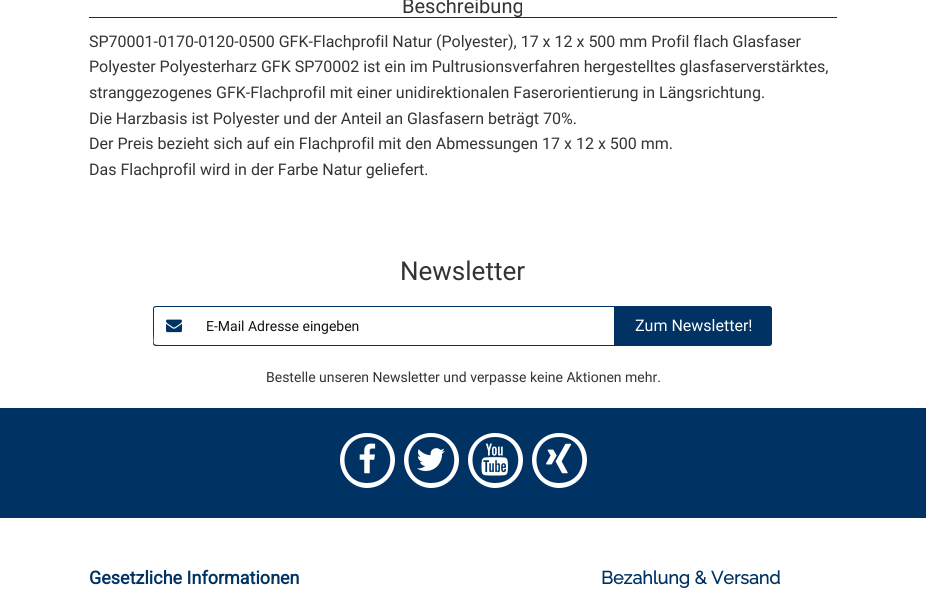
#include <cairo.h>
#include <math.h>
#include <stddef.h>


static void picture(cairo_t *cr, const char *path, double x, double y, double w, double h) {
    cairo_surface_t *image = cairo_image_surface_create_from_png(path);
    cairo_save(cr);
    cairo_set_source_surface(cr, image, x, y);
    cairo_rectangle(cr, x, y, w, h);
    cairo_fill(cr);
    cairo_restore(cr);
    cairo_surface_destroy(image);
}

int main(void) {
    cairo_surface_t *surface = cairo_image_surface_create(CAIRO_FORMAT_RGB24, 926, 604);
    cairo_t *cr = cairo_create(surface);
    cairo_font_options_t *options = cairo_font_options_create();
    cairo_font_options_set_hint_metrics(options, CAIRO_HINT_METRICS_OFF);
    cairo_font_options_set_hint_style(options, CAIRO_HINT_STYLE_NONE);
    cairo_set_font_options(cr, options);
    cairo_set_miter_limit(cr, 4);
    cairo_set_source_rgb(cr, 1, 1, 1);
    cairo_paint(cr);
    cairo_set_source_rgb(cr, 0, 0.196, 0.392);
    cairo_rectangle(cr, 89, 17, 748, 1);
    cairo_fill(cr);
    cairo_select_font_face(cr, "Roboto", CAIRO_FONT_SLANT_NORMAL, CAIRO_FONT_WEIGHT_NORMAL);
    cairo_set_font_size(cr, 20);
    cairo_set_source_rgb(cr, 0.208, 0.2, 0.2);
    cairo_move_to(cr, 402, 13);
    cairo_show_text(cr, "Beschreibung");
    cairo_set_font_size(cr, 16);
    cairo_move_to(cr, 89, 47);
    cairo_show_text(cr, "SP70001-0170-0120-0500 GFK-Flachprofil Natur (Polyester), 17 x 12 x 500 mm Profil flach Glasfaser");
    cairo_move_to(cr, 89, 72);
    cairo_show_text(cr, "Polyester Polyesterharz GFK SP70002 ist ein im Pultrusionsverfahren hergestelltes glasfaserverstärktes,");
    cairo_move_to(cr, 89, 98);
    cairo_show_text(cr, "stranggezogenes GFK-Flachprofil mit einer unidirektionalen Faserorientierung in Längsrichtung.");
    cairo_move_to(cr, 89, 124);
    cairo_show_text(cr, "Die Harzbasis ist Polyester und der Anteil an Glasfasern beträgt 70%.");
    cairo_move_to(cr, 89, 149);
    cairo_show_text(cr, "Der Preis bezieht sich auf ein Flachprofil mit den Abmessungen 17 x 12 x 500 mm.");
    cairo_move_to(cr, 89, 175);
    cairo_show_text(cr, "Das Flachprofil wird in der Farbe Natur geliefert.");
    cairo_set_font_size(cr, 26);
    cairo_move_to(cr, 400, 280);
    cairo_show_text(cr, "Newsletter");
    cairo_set_source_rgb(cr, 0, 0.196, 0.392);
    cairo_set_fill_rule(cr, CAIRO_FILL_RULE_EVEN_ODD);
    cairo_new_path(cr);
    cairo_move_to(cr, 156, 306);
    cairo_line_to(cr, 194, 306);
    cairo_line_to(cr, 194, 346);
    cairo_line_to(cr, 156, 346);
    cairo_curve_to(cr, 154, 346, 153, 345, 153, 343);
    cairo_line_to(cr, 153, 309);
    cairo_curve_to(cr, 153, 307, 154, 306, 156, 306);
    cairo_close_path(cr);
    cairo_move_to(cr, 156, 307);
    cairo_line_to(cr, 194, 307);
    cairo_line_to(cr, 194, 345);
    cairo_line_to(cr, 162, 345);
    cairo_curve_to(cr, 151, 345, 154, 345, 154, 332);
    cairo_line_to(cr, 154, 308);
    cairo_close_path(cr);
    cairo_fill(cr);
    picture(cr, "img1.png", 166, 319, 16, 14);
    cairo_rectangle(cr, 194, 306, 421, 1);
    cairo_fill(cr);
    cairo_rectangle(cr, 194, 345, 421, 1);
    cairo_fill(cr);
    cairo_set_font_size(cr, 14);
    cairo_set_source_rgb(cr, 0.075, 0.075, 0.075);
    cairo_move_to(cr, 206, 331);
    cairo_show_text(cr, "E-Mail Adresse eingeben");
    cairo_set_source_rgb(cr, 0, 0.196, 0.392);
    cairo_new_path(cr);
    cairo_move_to(cr, 614.5, 306.5);
    cairo_line_to(cr, 769, 306.5);
    cairo_curve_to(cr, 770.5, 306.5, 771.5, 307.5, 771.5, 309);
    cairo_line_to(cr, 771.5, 343);
    cairo_curve_to(cr, 771.5, 344.5, 770.5, 345.5, 769, 345.5);
    cairo_line_to(cr, 614.5, 345.5);
    cairo_close_path(cr);
    cairo_fill_preserve(cr);
    cairo_set_line_width(cr, 1);
    cairo_stroke(cr);
    cairo_set_font_size(cr, 16);
    cairo_set_source_rgb(cr, 1, 1, 1);
    cairo_move_to(cr, 635, 331);
    cairo_show_text(cr, "Zum Newsletter!");
    cairo_set_font_size(cr, 14);
    cairo_set_source_rgb(cr, 0.208, 0.2, 0.2);
    cairo_move_to(cr, 266, 382);
    cairo_show_text(cr, "Bestelle unseren Newsletter und verpasse keine Aktionen mehr.");
    cairo_set_source_rgb(cr, 0.004, 0.196, 0.392);
    cairo_rectangle(cr, 0, 408, 926, 110);
    cairo_fill(cr);
    cairo_set_source_rgb(cr, 1, 1, 1);
    cairo_set_fill_rule(cr, CAIRO_FILL_RULE_WINDING);
    cairo_new_path(cr);
    cairo_move_to(cr, 367, 437);
    cairo_curve_to(cr, 398, 437, 398, 483, 367, 483);
    cairo_curve_to(cr, 337, 483, 337, 437, 367, 437);
    cairo_close_path(cr);
    cairo_move_to(cr, 395, 460);
    cairo_curve_to(cr, 395, 445, 383, 433, 367, 433);
    cairo_curve_to(cr, 352, 433, 340, 445, 340, 460);
    cairo_curve_to(cr, 340, 475, 352, 488, 367, 488);
    cairo_curve_to(cr, 383, 488, 395, 475, 395, 460);
    cairo_close_path(cr);
    cairo_fill(cr);
    picture(cr, "img2.png", 359, 443, 17, 31);
    cairo_new_path(cr);
    cairo_move_to(cr, 431, 437);
    cairo_curve_to(cr, 462, 437, 462, 483, 431, 483);
    cairo_curve_to(cr, 401, 483, 401, 437, 431, 437);
    cairo_close_path(cr);
    cairo_move_to(cr, 459, 460);
    cairo_curve_to(cr, 459, 445, 447, 433, 431, 433);
    cairo_curve_to(cr, 416, 433, 404, 445, 404, 460);
    cairo_curve_to(cr, 404, 475, 416, 488, 431, 488);
    cairo_curve_to(cr, 447, 488, 459, 475, 459, 460);
    cairo_close_path(cr);
    cairo_fill(cr);
    picture(cr, "img3.png", 417, 448, 28, 23);
    cairo_new_path(cr);
    cairo_move_to(cr, 495, 437);
    cairo_curve_to(cr, 526, 437, 526, 483, 495, 483);
    cairo_curve_to(cr, 465, 483, 465, 437, 495, 437);
    cairo_close_path(cr);
    cairo_move_to(cr, 523, 460);
    cairo_curve_to(cr, 523, 445, 511, 433, 495, 433);
    cairo_curve_to(cr, 480, 433, 468, 445, 468, 460);
    cairo_curve_to(cr, 468, 475, 480, 488, 495, 488);
    cairo_curve_to(cr, 511, 488, 523, 475, 523, 460);
    cairo_close_path(cr);
    cairo_fill(cr);
    picture(cr, "img4.png", 481, 443, 27, 33);
    cairo_new_path(cr);
    cairo_move_to(cr, 559, 437);
    cairo_curve_to(cr, 590, 437, 590, 483, 559, 483);
    cairo_curve_to(cr, 529, 483, 529, 437, 559, 437);
    cairo_close_path(cr);
    cairo_move_to(cr, 587, 460);
    cairo_curve_to(cr, 587, 445, 575, 433, 559, 433);
    cairo_curve_to(cr, 544, 433, 532, 445, 532, 460);
    cairo_curve_to(cr, 532, 475, 544, 488, 559, 488);
    cairo_curve_to(cr, 575, 488, 587, 475, 587, 460);
    cairo_close_path(cr);
    cairo_fill(cr);
    picture(cr, "img5.png", 546, 443, 26, 31);
    cairo_select_font_face(cr, "Roboto", CAIRO_FONT_SLANT_NORMAL, CAIRO_FONT_WEIGHT_BOLD);
    cairo_set_font_size(cr, 18);
    cairo_set_source_rgb(cr, 0, 0.196, 0.392);
    cairo_move_to(cr, 89, 584);
    cairo_show_text(cr, "Gesetzliche Informationen");
    cairo_select_font_face(cr, "Raleway", CAIRO_FONT_SLANT_NORMAL, CAIRO_FONT_WEIGHT_BOLD);
    cairo_move_to(cr, 601, 584);
    cairo_show_text(cr, "Bezahlung & Versand");
    cairo_surface_write_to_png(surface, "page.png");
    cairo_font_options_destroy(options);
    cairo_destroy(cr);
    cairo_surface_destroy(surface);
    return 0;
}
